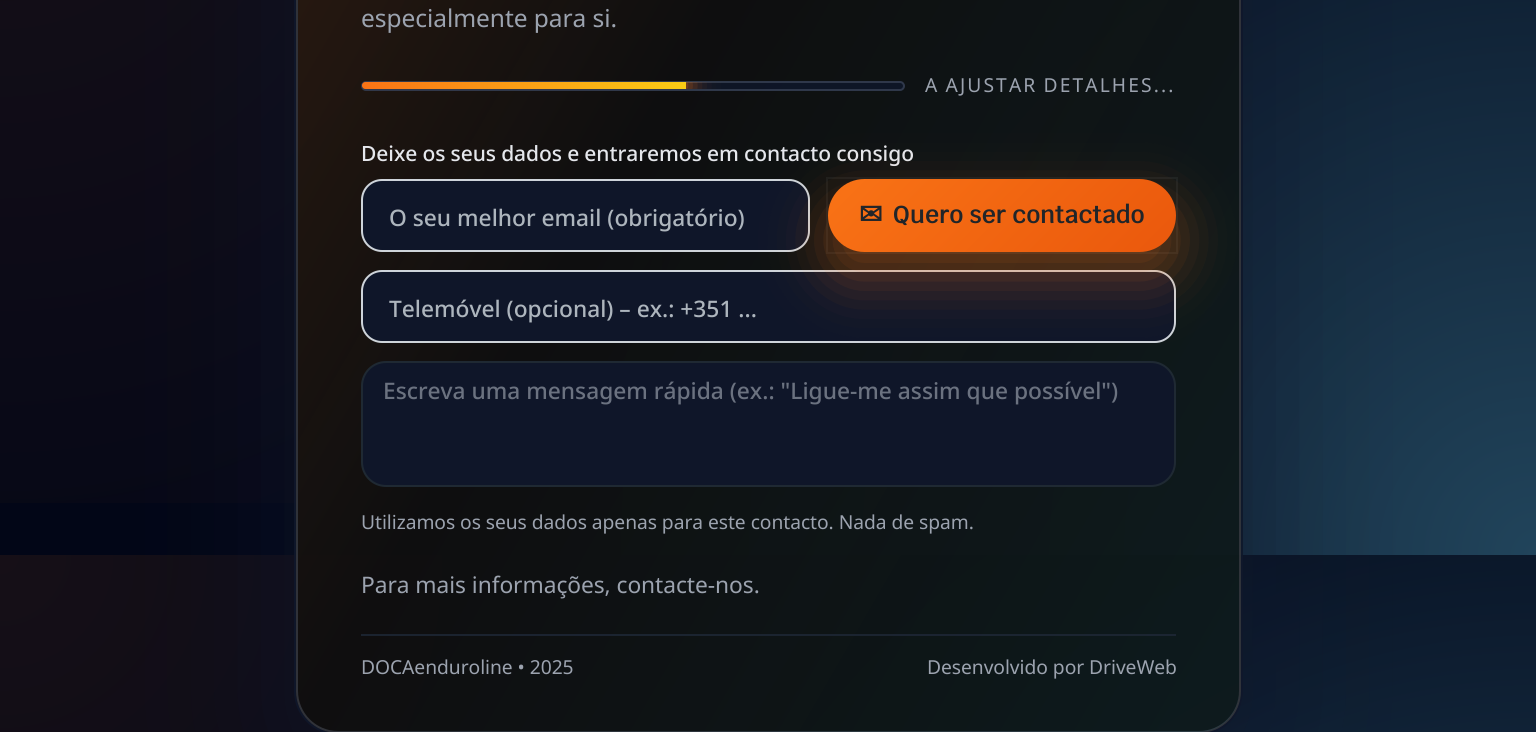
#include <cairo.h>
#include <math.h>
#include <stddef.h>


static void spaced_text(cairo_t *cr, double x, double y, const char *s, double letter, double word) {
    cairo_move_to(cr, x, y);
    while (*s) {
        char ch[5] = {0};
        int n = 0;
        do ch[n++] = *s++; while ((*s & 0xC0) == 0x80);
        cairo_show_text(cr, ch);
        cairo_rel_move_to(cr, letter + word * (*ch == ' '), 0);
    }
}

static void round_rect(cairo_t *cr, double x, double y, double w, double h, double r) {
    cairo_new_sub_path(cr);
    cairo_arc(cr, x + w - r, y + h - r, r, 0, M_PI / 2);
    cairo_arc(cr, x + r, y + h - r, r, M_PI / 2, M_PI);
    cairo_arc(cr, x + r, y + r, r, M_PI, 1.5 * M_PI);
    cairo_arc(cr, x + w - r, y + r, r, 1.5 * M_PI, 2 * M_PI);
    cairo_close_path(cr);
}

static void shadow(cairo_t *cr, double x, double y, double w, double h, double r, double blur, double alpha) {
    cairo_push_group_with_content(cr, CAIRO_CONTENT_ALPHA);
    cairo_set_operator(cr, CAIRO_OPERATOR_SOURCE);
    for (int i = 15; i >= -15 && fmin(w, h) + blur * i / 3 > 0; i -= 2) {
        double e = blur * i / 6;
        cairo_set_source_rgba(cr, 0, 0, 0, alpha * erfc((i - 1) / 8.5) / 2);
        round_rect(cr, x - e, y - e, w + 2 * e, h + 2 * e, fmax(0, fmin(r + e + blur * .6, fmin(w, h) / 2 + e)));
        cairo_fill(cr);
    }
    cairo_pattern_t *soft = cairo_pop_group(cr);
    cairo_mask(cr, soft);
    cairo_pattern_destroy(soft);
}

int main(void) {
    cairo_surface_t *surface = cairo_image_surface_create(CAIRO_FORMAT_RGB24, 1536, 732);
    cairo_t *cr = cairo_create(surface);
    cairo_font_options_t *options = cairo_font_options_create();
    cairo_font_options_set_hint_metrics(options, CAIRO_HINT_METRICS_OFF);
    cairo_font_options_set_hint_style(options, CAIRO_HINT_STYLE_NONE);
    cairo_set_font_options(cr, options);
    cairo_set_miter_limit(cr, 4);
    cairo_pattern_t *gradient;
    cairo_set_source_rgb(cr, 1, 1, 1);
    cairo_paint(cr);
    gradient = cairo_pattern_create_radial(1537, 555, 0, 1537, 555, 1702);
    cairo_pattern_add_color_stop_rgba(gradient, 0, 0.129, 0.267, 0.357, 1);
    cairo_pattern_add_color_stop_rgba(gradient, 0.6, 0.008, 0.024, 0.09, 1);
    cairo_set_source(cr, gradient);
    cairo_pattern_destroy(gradient);
    cairo_rectangle(cr, 0, 0, 1536, 555);
    cairo_fill(cr);
    gradient = cairo_pattern_create_radial(1537, 1288, 0, 1537, 1288, 1702);
    cairo_pattern_add_color_stop_rgba(gradient, 0, 0.129, 0.267, 0.357, 1);
    cairo_pattern_add_color_stop_rgba(gradient, 0.6, 0.008, 0.024, 0.09, 1);
    cairo_set_source(cr, gradient);
    cairo_pattern_destroy(gradient);
    cairo_rectangle(cr, 0, 555, 1536, 177);
    cairo_fill(cr);
    gradient = cairo_pattern_create_radial(0, -178, 0, 0, -178, 1702);
    cairo_pattern_add_color_stop_rgba(gradient, 0, 0.976, 0.451, 0.086, 0.08);
    cairo_pattern_add_color_stop_rgba(gradient, 0.55, 0.976, 0.451, 0.086, 0);
    cairo_set_source(cr, gradient);
    cairo_pattern_destroy(gradient);
    cairo_rectangle(cr, 0, 0, 662, 503);
    cairo_fill(cr);
    gradient = cairo_pattern_create_radial(0, 555, 0, 0, 555, 1702);
    cairo_pattern_add_color_stop_rgba(gradient, 0, 0.976, 0.451, 0.086, 0.08);
    cairo_pattern_add_color_stop_rgba(gradient, 0.55, 0.976, 0.451, 0.086, 0);
    cairo_set_source(cr, gradient);
    cairo_pattern_destroy(gradient);
    cairo_rectangle(cr, 0, 555, 685, 177);
    cairo_fill(cr);
    round_rect(cr, 295, -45, 947, 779, 43);
    cairo_set_source_rgba(cr, 0.059, 0.09, 0.165, 0.9);
    cairo_stroke(cr);
    cairo_save(cr);
    cairo_set_fill_rule(cr, CAIRO_FILL_RULE_EVEN_ODD);
    cairo_new_path(cr);
    cairo_move_to(cr, 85, 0);
    cairo_line_to(cr, 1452, 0);
    cairo_line_to(cr, 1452, 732);
    cairo_line_to(cr, 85, 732);
    cairo_close_path(cr);
    cairo_move_to(cr, 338, -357);
    cairo_line_to(cr, 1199, -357);
    cairo_curve_to(cr, 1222, -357, 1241, -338, 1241, -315);
    cairo_line_to(cr, 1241, 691);
    cairo_curve_to(cr, 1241, 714, 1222, 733, 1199, 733);
    cairo_line_to(cr, 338, 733);
    cairo_curve_to(cr, 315, 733, 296, 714, 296, 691);
    cairo_line_to(cr, 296, -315);
    cairo_curve_to(cr, 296, -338, 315, -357, 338, -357);
    cairo_close_path(cr);
    cairo_clip(cr);
    cairo_set_source_rgb(cr, 0.059, 0.09, 0.165);
    shadow(cr, 296, -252, 945, 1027, 42, 70, 0.75);
    cairo_restore(cr);
    cairo_set_source_rgba(cr, 0.059, 0.059, 0.059, 0.96);
    round_rect(cr, 296, -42, 945, 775, 42);
    cairo_fill(cr);
    round_rect(cr, 297, -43, 943, 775, 41);
    cairo_set_source_rgba(cr, 0.58, 0.639, 0.722, 0.25);
    cairo_stroke(cr);
    gradient = cairo_pattern_create_linear(180, -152, 1357, 528);
    cairo_pattern_add_color_stop_rgba(gradient, 0, 0.976, 0.451, 0.086, 0.14);
    cairo_pattern_add_color_stop_rgba(gradient, 0.4, 0.976, 0.451, 0.086, 0);
    cairo_pattern_add_color_stop_rgba(gradient, 0.4, 0.024, 0.714, 0.831, 0);
    cairo_pattern_add_color_stop_rgba(gradient, 1, 0.024, 0.714, 0.831, 0.07);
    cairo_set_source(cr, gradient);
    cairo_pattern_destroy(gradient);
    round_rect(cr, 298, -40, 941, 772, 40);
    cairo_fill(cr);
    cairo_select_font_face(cr, "Noto Sans", CAIRO_FONT_SLANT_NORMAL, CAIRO_FONT_WEIGHT_NORMAL);
    cairo_set_font_size(cr, 24.5);
    cairo_set_source_rgb(cr, 0.612, 0.639, 0.686);
    spaced_text(cr, 361, 27, "especialmente para si.", -0.05, 0);
    cairo_set_source_rgba(cr, 0.059, 0.09, 0.165, 0.85);
    round_rect(cr, 361, 81, 544, 10, 5);
    cairo_fill(cr);
    round_rect(cr, 362, 82, 542, 8, 4);
    cairo_set_source_rgba(cr, 0.58, 0.639, 0.722, 0.25);
    cairo_stroke(cr);
    cairo_save(cr);
    round_rect(cr, 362, 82, 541, 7, 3.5);
    cairo_clip(cr);
    cairo_set_source_rgb(cr, 0.976, 0.451, 0.086);
    shadow(cr, 362, 82, 324, 7, 0, 14, 0.8);
    cairo_restore(cr);
    gradient = cairo_pattern_create_linear(362, 86, 686, 86);
    cairo_pattern_add_color_stop_rgba(gradient, 0, 0.976, 0.451, 0.086, 1);
    cairo_pattern_add_color_stop_rgba(gradient, 1, 0.98, 0.8, 0.082, 1);
    cairo_set_source(cr, gradient);
    cairo_pattern_destroy(gradient);
    cairo_new_path(cr);
    cairo_move_to(cr, 365.5, 82);
    cairo_line_to(cr, 686, 82);
    cairo_line_to(cr, 686, 89);
    cairo_line_to(cr, 365.5, 89);
    cairo_curve_to(cr, 363.5, 89, 362, 87.5, 362, 85.5);
    cairo_curve_to(cr, 362, 83.5, 363.5, 82, 365.5, 82);
    cairo_close_path(cr);
    cairo_fill(cr);
    cairo_set_font_size(cr, 19.25);
    cairo_set_source_rgb(cr, 0.612, 0.639, 0.686);
    spaced_text(cr, 925, 92, "A AJUSTAR DETALHES...", 2.1, -1);
    cairo_select_font_face(cr, "Noto Sans Medium", CAIRO_FONT_SLANT_NORMAL, CAIRO_FONT_WEIGHT_NORMAL);
    cairo_set_font_size(cr, 21);
    cairo_set_source_rgb(cr, 0.898, 0.906, 0.922);
    spaced_text(cr, 361, 161, "Deixe os seus dados e entraremos em contacto consigo", -0.05, -0.25);
    cairo_set_source_rgba(cr, 0.059, 0.09, 0.165, 0.95);
    round_rect(cr, 362, 180, 447, 71, 20);
    cairo_fill_preserve(cr);
    cairo_set_source_rgb(cr, 0.808, 0.831, 0.855);
    cairo_stroke(cr);
    cairo_set_font_size(cr, 22.75);
    cairo_set_source_rgb(cr, 0.678, 0.71, 0.741);
    cairo_move_to(cr, 389, 226);
    cairo_show_text(cr, "O seu melhor email (obrigatório)");
    cairo_rectangle(cr, 827, 178, 350, 75);
    cairo_set_source_rgba(cr, 0.973, 0.98, 0.988, 0.05);
    cairo_stroke(cr);
    cairo_set_source_rgba(cr, 0.059, 0.09, 0.165, 0.95);
    round_rect(cr, 362, 271, 813, 71, 20);
    cairo_fill_preserve(cr);
    cairo_set_source_rgb(cr, 0.808, 0.831, 0.855);
    cairo_stroke(cr);
    cairo_set_source_rgba(cr, 0.059, 0.09, 0.165, 0.95);
    round_rect(cr, 362, 362, 813, 124, 24);
    cairo_fill_preserve(cr);
    cairo_set_source_rgb(cr, 0.122, 0.161, 0.2);
    cairo_stroke(cr);
    cairo_set_source_rgb(cr, 0.973, 0.443, 0.086);
    shadow(cr, 828, 203, 348, 74, 37, 28, 0.4);
    gradient = cairo_pattern_create_linear(896, 110, 1107, 321);
    cairo_pattern_add_color_stop_rgba(gradient, 0, 0.976, 0.451, 0.086, 1);
    cairo_pattern_add_color_stop_rgba(gradient, 1, 0.918, 0.345, 0.047, 1);
    cairo_set_source(cr, gradient);
    cairo_pattern_destroy(gradient);
    round_rect(cr, 828, 179, 348, 73, 36.5);
    cairo_fill(cr);
    cairo_select_font_face(cr, "DejaVu Sans", CAIRO_FONT_SLANT_NORMAL, CAIRO_FONT_WEIGHT_BOLD);
    cairo_set_font_size(cr, 28);
    cairo_set_source_rgb(cr, 0.129, 0.145, 0.161);
    cairo_move_to(cr, 859, 224);
    cairo_show_text(cr, "✉");
    cairo_select_font_face(cr, "Krub SemiBold", CAIRO_FONT_SLANT_NORMAL, CAIRO_FONT_WEIGHT_NORMAL);
    cairo_set_font_size(cr, 24.5);
    cairo_move_to(cr, 893, 223);
    cairo_show_text(cr, "Quero ser contactado");
    cairo_select_font_face(cr, "Noto Sans Medium", CAIRO_FONT_SLANT_NORMAL, CAIRO_FONT_WEIGHT_NORMAL);
    cairo_set_font_size(cr, 22.75);
    cairo_set_source_rgb(cr, 0.678, 0.71, 0.741);
    cairo_move_to(cr, 389, 317);
    cairo_show_text(cr, "Telemóvel (opcional) – ex.: +351 ...");
    cairo_set_source_rgb(cr, 0.42, 0.447, 0.502);
    cairo_move_to(cr, 383, 399);
    cairo_show_text(cr, "Escreva uma mensagem rápida (ex.: \"Ligue-me assim que possível\")");
    cairo_select_font_face(cr, "Noto Sans", CAIRO_FONT_SLANT_NORMAL, CAIRO_FONT_WEIGHT_NORMAL);
    cairo_set_font_size(cr, 19.25);
    cairo_set_source_rgb(cr, 0.612, 0.639, 0.686);
    spaced_text(cr, 361, 529, "Utilizamos os seus dados apenas para este contacto. Nada de spam.", -0.05, 0);
    cairo_set_font_size(cr, 22.75);
    spaced_text(cr, 361, 593, "Para mais informações, contacte-nos.", -0.05, 0);
    cairo_set_source_rgba(cr, 0.122, 0.161, 0.216, 0.8);
    cairo_rectangle(cr, 361, 634, 815, 2);
    cairo_fill(cr);
    cairo_set_font_size(cr, 19.25);
    cairo_set_source_rgb(cr, 0.612, 0.639, 0.686);
    spaced_text(cr, 361, 674, "DOCAenduroline • 2025", -0.05, 0);
    spaced_text(cr, 927, 674, "Desenvolvido por DriveWeb", -0.05, 0);
    cairo_surface_write_to_png(surface, "page.png");
    cairo_font_options_destroy(options);
    cairo_destroy(cr);
    cairo_surface_destroy(surface);
    return 0;
}
